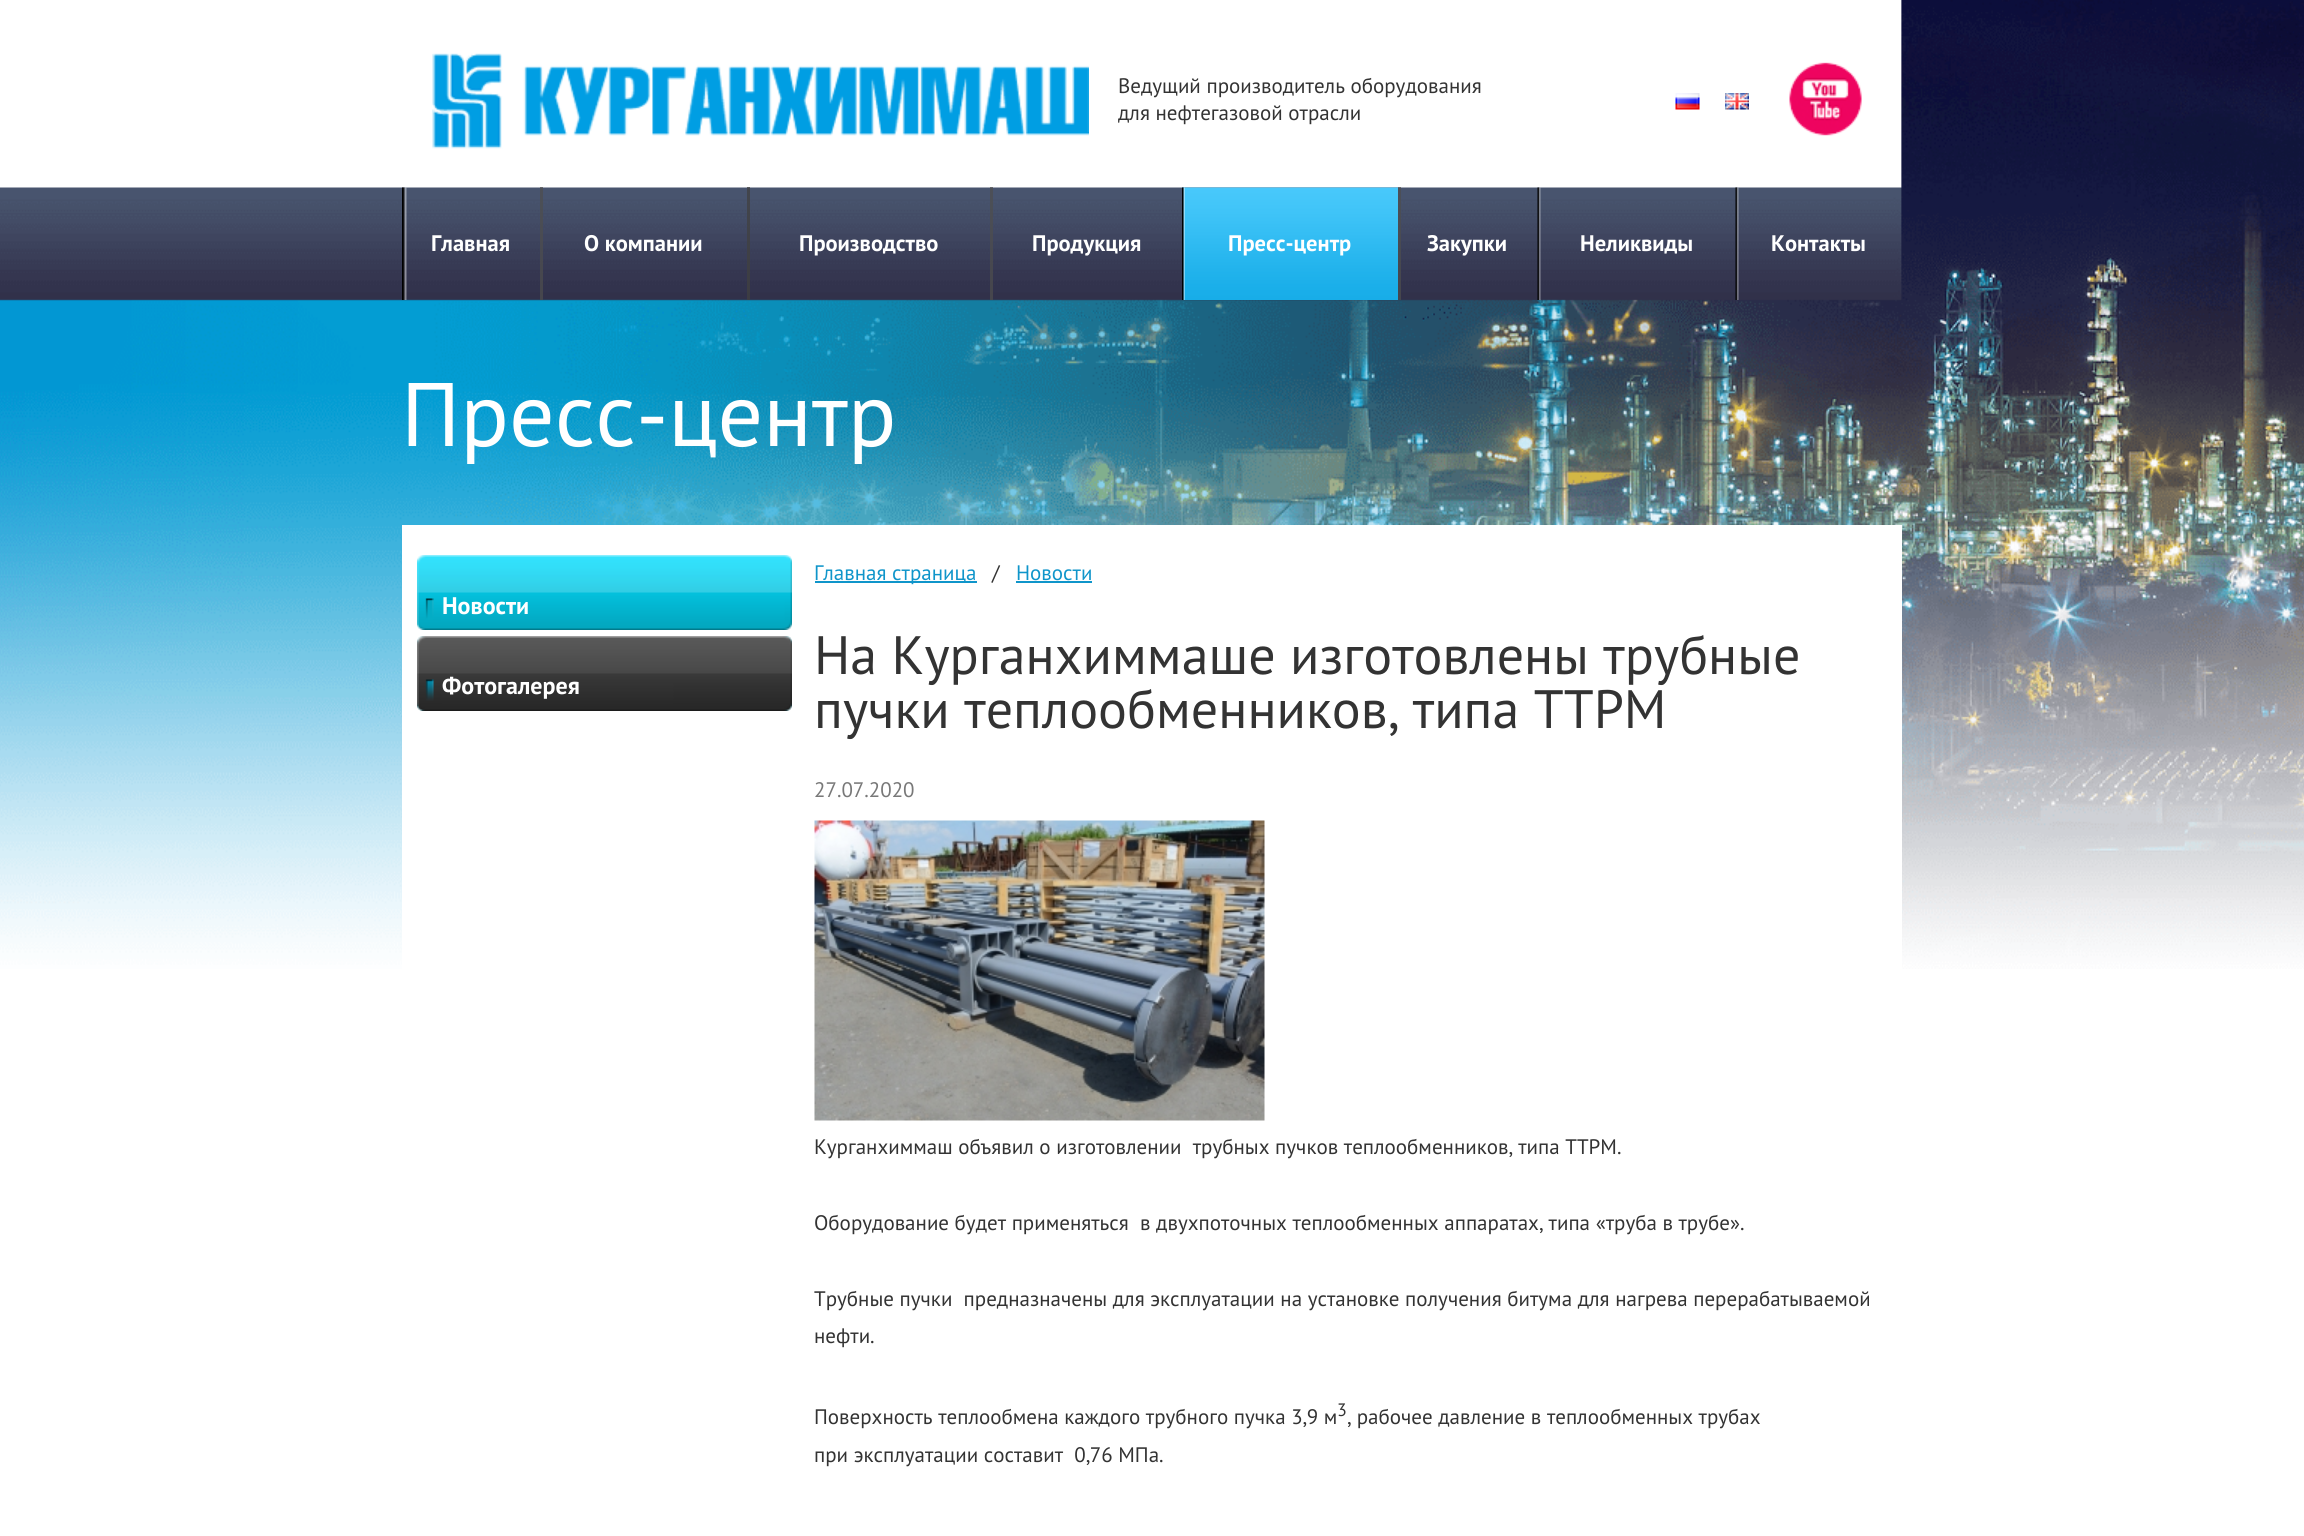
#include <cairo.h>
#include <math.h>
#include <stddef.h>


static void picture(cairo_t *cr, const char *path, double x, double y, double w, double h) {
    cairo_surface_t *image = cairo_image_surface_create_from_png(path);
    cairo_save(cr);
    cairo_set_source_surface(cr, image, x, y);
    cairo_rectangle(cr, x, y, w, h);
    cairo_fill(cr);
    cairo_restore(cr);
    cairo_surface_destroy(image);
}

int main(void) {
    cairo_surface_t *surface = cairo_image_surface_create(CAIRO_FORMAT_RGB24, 2304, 1536);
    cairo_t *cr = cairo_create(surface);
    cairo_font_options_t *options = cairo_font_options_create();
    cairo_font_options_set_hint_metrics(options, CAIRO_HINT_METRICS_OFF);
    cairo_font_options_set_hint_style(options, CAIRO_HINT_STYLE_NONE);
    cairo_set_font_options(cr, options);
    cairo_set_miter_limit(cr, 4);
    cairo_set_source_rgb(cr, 1, 1, 1);
    cairo_paint(cr);
    picture(cr, "img1.png", 0, 0, 2304, 969);
    picture(cr, "img2.png", 432, 53, 657, 96);
    cairo_select_font_face(cr, "PT Sans", CAIRO_FONT_SLANT_NORMAL, CAIRO_FONT_WEIGHT_NORMAL);
    cairo_set_font_size(cr, 21);
    cairo_set_source_rgb(cr, 0.2, 0.2, 0.2);
    cairo_move_to(cr, 1118, 93);
    cairo_show_text(cr, "Ведущий производитель оборудования");
    cairo_move_to(cr, 1118, 120);
    cairo_show_text(cr, "для нефтегазовой отрасли");
    picture(cr, "img3.png", 1675, 93, 25, 17);
    picture(cr, "img4.png", 1725, 93, 24, 17);
    picture(cr, "img5.png", 1789, 62, 73, 74);
    picture(cr, "img6.png", 402, 187, 5, 113);
    cairo_select_font_face(cr, "PT Sans", CAIRO_FONT_SLANT_NORMAL, CAIRO_FONT_WEIGHT_BOLD);
    cairo_set_font_size(cr, 22.5);
    cairo_set_source_rgb(cr, 1, 1, 1);
    cairo_move_to(cr, 431, 251);
    cairo_show_text(cr, "Главная");
    cairo_set_source_rgba(cr, 0.306, 0.306, 0.306, 0.72);
    cairo_rectangle(cr, 540, 187, 3, 113);
    cairo_fill(cr);
    cairo_set_source_rgb(cr, 1, 1, 1);
    cairo_move_to(cr, 584, 251);
    cairo_show_text(cr, "О компании");
    cairo_set_source_rgba(cr, 0.255, 0.255, 0.255, 0.75);
    cairo_rectangle(cr, 747, 187, 3, 113);
    cairo_fill(cr);
    cairo_set_source_rgb(cr, 1, 1, 1);
    cairo_move_to(cr, 799, 251);
    cairo_show_text(cr, "Производство");
    cairo_set_source_rgba(cr, 0.306, 0.306, 0.306, 0.72);
    cairo_rectangle(cr, 990, 187, 3, 113);
    cairo_fill(cr);
    cairo_set_source_rgb(cr, 1, 1, 1);
    cairo_move_to(cr, 1032, 251);
    cairo_show_text(cr, "Продукция");
    picture(cr, "img7.png", 1182, 187, 216, 113);
    cairo_move_to(cr, 1228, 251);
    cairo_show_text(cr, "Пресс-центр");
    cairo_set_source_rgba(cr, 0.306, 0.306, 0.306, 0.72);
    cairo_rectangle(cr, 1398, 187, 3, 113);
    cairo_fill(cr);
    cairo_set_source_rgb(cr, 1, 1, 1);
    cairo_move_to(cr, 1427, 251);
    cairo_show_text(cr, "Закупки");
    picture(cr, "img8.png", 1537, 187, 4, 113);
    cairo_move_to(cr, 1580, 251);
    cairo_show_text(cr, "Неликвиды");
    picture(cr, "img9.png", 1735, 187, 4, 113);
    cairo_move_to(cr, 1771, 251);
    cairo_show_text(cr, "Контакты");
    cairo_select_font_face(cr, "PT Sans", CAIRO_FONT_SLANT_NORMAL, CAIRO_FONT_WEIGHT_NORMAL);
    cairo_set_font_size(cr, 90);
    cairo_move_to(cr, 401, 446);
    cairo_show_text(cr, "Пресс-центр");
    cairo_rectangle(cr, 402, 525, 1500, 444);
    cairo_fill(cr);
    picture(cr, "img10.png", 417, 555, 375, 75);
    cairo_select_font_face(cr, "PT Sans", CAIRO_FONT_SLANT_NORMAL, CAIRO_FONT_WEIGHT_BOLD);
    cairo_set_font_size(cr, 24);
    cairo_move_to(cr, 442, 614);
    cairo_show_text(cr, "Новости");
    picture(cr, "img11.png", 417, 636, 375, 75);
    cairo_move_to(cr, 442, 694);
    cairo_show_text(cr, "Фотогалерея");
    cairo_set_source_rgb(cr, 0.059, 0.584, 0.792);
    cairo_rectangle(cr, 815, 581, 162, 2);
    cairo_fill(cr);
    cairo_select_font_face(cr, "PT Sans", CAIRO_FONT_SLANT_NORMAL, CAIRO_FONT_WEIGHT_NORMAL);
    cairo_set_font_size(cr, 21);
    cairo_move_to(cr, 814, 580);
    cairo_show_text(cr, "Главная страница");
    cairo_set_source_rgb(cr, 0.2, 0.2, 0.2);
    cairo_move_to(cr, 992, 580);
    cairo_show_text(cr, "/");
    cairo_set_source_rgb(cr, 0.059, 0.584, 0.792);
    cairo_move_to(cr, 1016, 580);
    cairo_show_text(cr, "Новости");
    cairo_rectangle(cr, 1016, 581, 76, 2);
    cairo_fill(cr);
    cairo_set_font_size(cr, 54);
    cairo_set_source_rgb(cr, 0.2, 0.2, 0.2);
    cairo_move_to(cr, 814, 674);
    cairo_show_text(cr, "На Курганхиммаше изготовлены трубные");
    cairo_move_to(cr, 814, 728);
    cairo_show_text(cr, "пучки теплообменников, типа ТТРМ");
    cairo_set_font_size(cr, 21);
    cairo_set_source_rgb(cr, 0.471, 0.471, 0.471);
    cairo_move_to(cr, 814, 797);
    cairo_show_text(cr, "27.07.2020");
    picture(cr, "img12.png", 814, 820, 451, 301);
    cairo_set_source_rgb(cr, 0.2, 0.2, 0.2);
    cairo_move_to(cr, 814, 1154);
    cairo_show_text(cr, "Курганхиммаш объявил о изготовлении  трубных пучков теплообменников, типа ТТРМ.");
    cairo_move_to(cr, 814, 1230);
    cairo_show_text(cr, "Оборудование будет применяться  в двухпоточных теплообменных аппаратах, типа «труба в трубе».");
    cairo_move_to(cr, 814, 1306);
    cairo_show_text(cr, "Трубные пучки  предназначены для эксплуатации на установке получения битума для нагрева перерабатываемой");
    cairo_move_to(cr, 814, 1343);
    cairo_show_text(cr, "нефти.");
    cairo_move_to(cr, 814, 1424);
    cairo_show_text(cr, "Поверхность теплообмена каждого трубного пучка 3,9 м");
    cairo_set_font_size(cr, 18);
    cairo_move_to(cr, 1337, 1416);
    cairo_show_text(cr, "3");
    cairo_set_font_size(cr, 21);
    cairo_move_to(cr, 1347, 1424);
    cairo_show_text(cr, ", рабочее давление в теплообменных трубах");
    cairo_move_to(cr, 814, 1462);
    cairo_show_text(cr, "при эксплуатации составит  0,76 МПа.");
    cairo_surface_write_to_png(surface, "page.png");
    cairo_font_options_destroy(options);
    cairo_destroy(cr);
    cairo_surface_destroy(surface);
    return 0;
}
